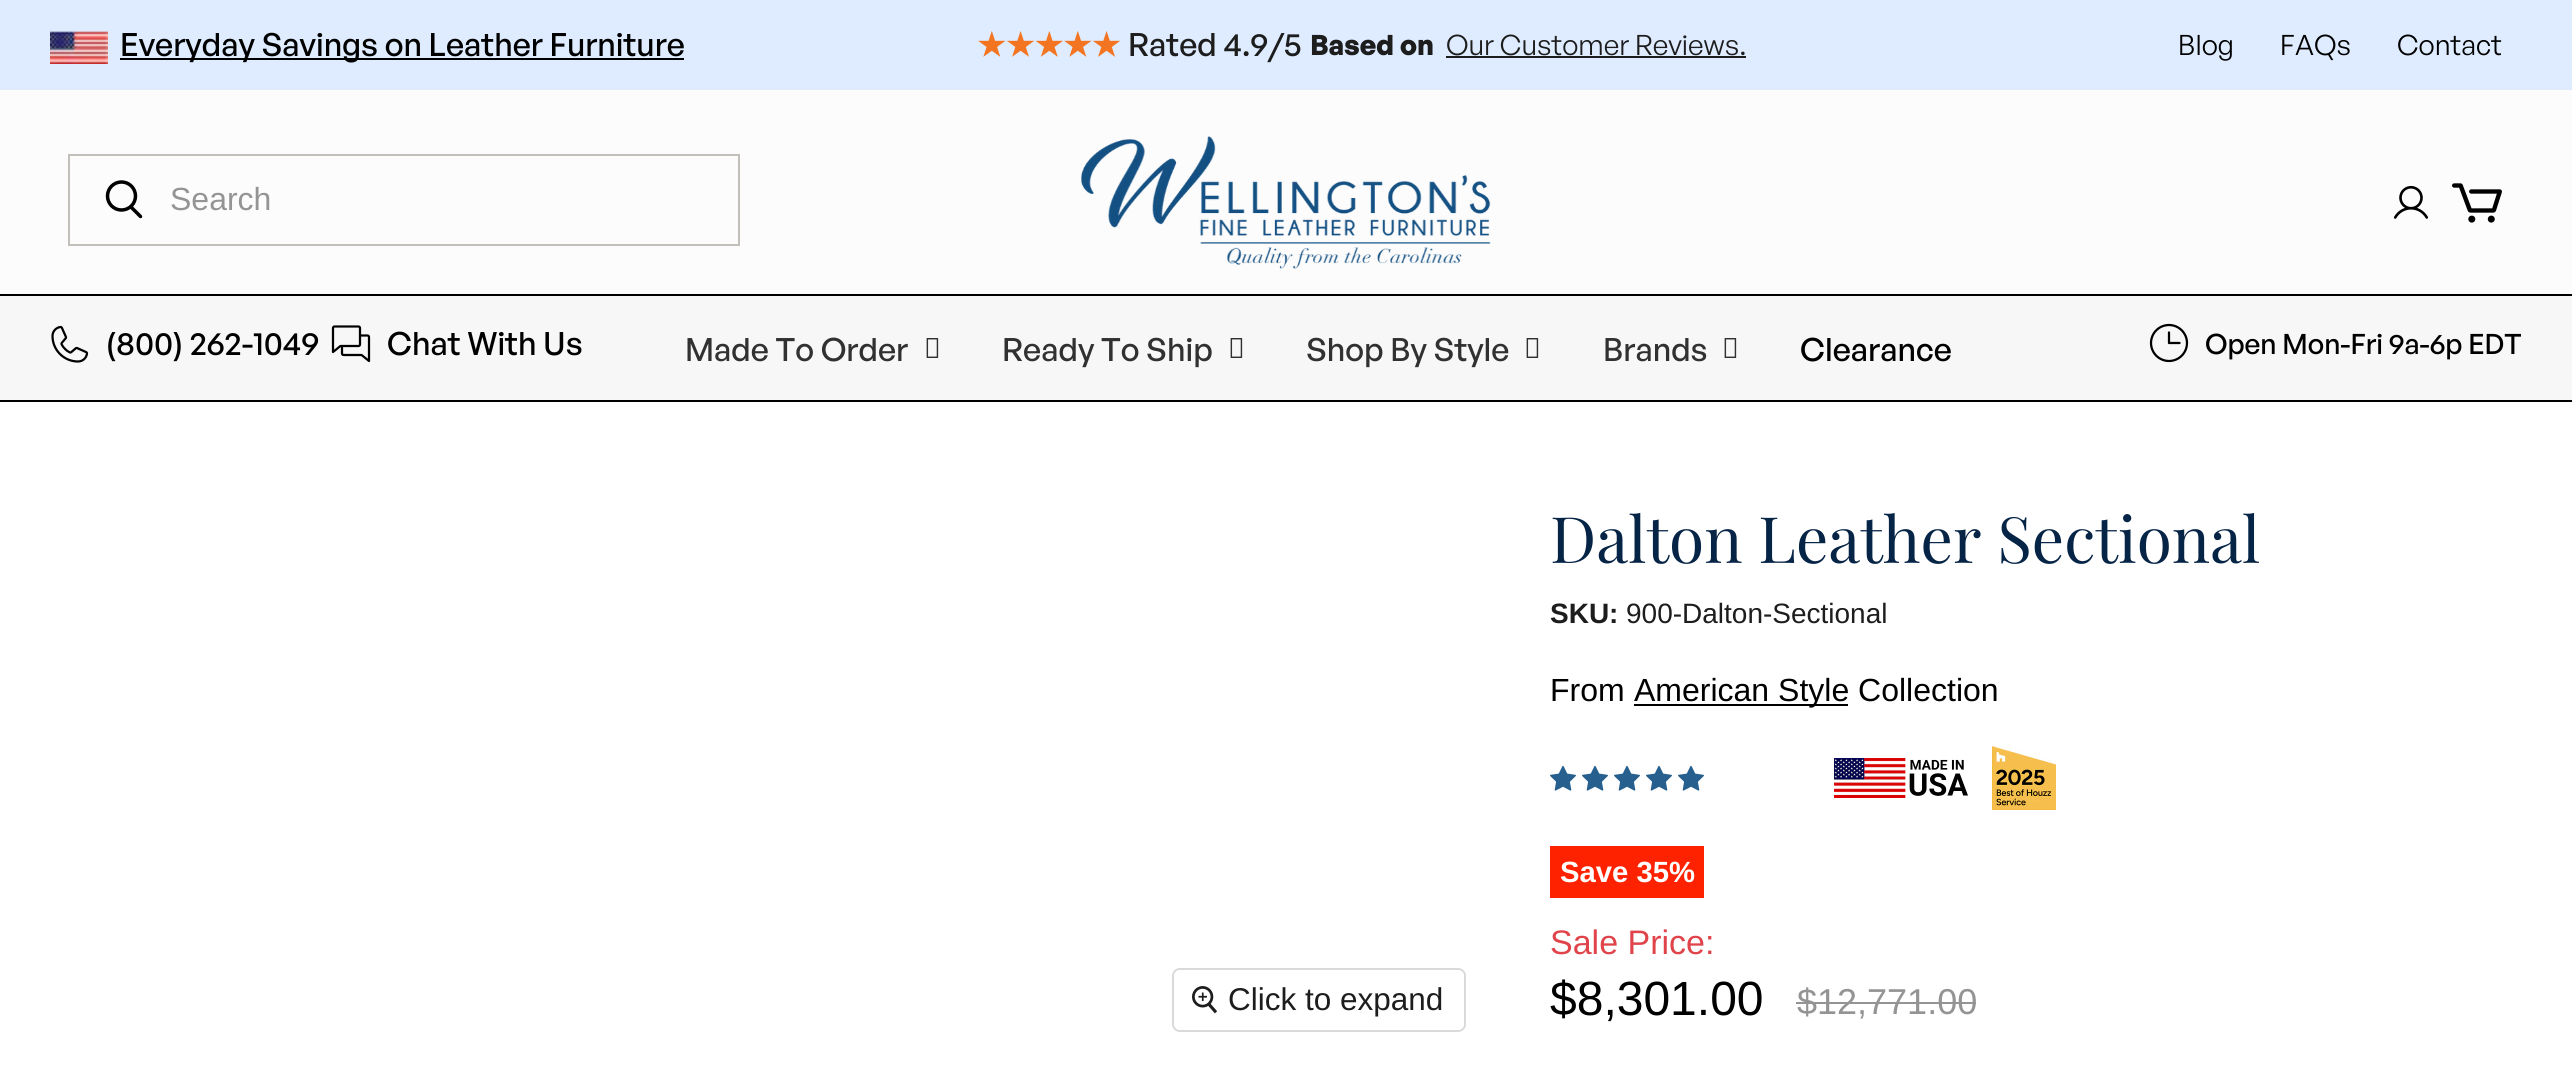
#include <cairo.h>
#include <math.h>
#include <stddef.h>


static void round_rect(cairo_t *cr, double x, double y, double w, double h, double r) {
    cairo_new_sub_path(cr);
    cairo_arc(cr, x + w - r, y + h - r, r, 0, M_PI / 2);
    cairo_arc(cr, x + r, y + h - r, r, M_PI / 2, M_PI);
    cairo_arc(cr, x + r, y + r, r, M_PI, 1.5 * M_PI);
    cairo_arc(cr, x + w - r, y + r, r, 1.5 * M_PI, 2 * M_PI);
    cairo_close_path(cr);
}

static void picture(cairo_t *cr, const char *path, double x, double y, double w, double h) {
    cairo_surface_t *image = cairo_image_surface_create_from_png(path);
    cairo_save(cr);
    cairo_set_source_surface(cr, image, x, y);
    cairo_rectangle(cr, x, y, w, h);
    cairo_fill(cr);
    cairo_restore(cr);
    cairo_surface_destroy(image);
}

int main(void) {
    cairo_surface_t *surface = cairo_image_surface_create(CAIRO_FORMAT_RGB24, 2572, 1085);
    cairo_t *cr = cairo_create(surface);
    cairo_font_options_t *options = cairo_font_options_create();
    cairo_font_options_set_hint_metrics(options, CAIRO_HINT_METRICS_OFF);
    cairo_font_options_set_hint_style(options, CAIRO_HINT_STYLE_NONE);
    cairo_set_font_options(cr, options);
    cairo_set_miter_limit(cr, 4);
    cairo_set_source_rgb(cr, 1, 1, 1);
    cairo_paint(cr);
    cairo_set_source_rgb(cr, 0.875, 0.925, 1);
    cairo_rectangle(cr, 0, 0, 2572, 90);
    cairo_fill(cr);
    picture(cr, "img1.png", 50, 31, 58, 33);
    cairo_set_source_rgb(cr, 0, 0, 0);
    cairo_rectangle(cr, 120, 58, 564, 2);
    cairo_fill(cr);
    cairo_select_font_face(cr, "General Sans Medium", CAIRO_FONT_SLANT_NORMAL, CAIRO_FONT_WEIGHT_NORMAL);
    cairo_set_font_size(cr, 32);
    cairo_move_to(cr, 120, 56);
    cairo_show_text(cr, "Everyday Savings on Leather Furniture");
    cairo_select_font_face(cr, "DejaVu Sans", CAIRO_FONT_SLANT_NORMAL, CAIRO_FONT_WEIGHT_BOLD);
    cairo_set_source_rgb(cr, 0.953, 0.459, 0.129);
    cairo_move_to(cr, 977, 56);
    cairo_show_text(cr, "★★★★★");
    cairo_select_font_face(cr, "General Sans Medium", CAIRO_FONT_SLANT_NORMAL, CAIRO_FONT_WEIGHT_NORMAL);
    cairo_set_source_rgb(cr, 0.114, 0.114, 0.114);
    cairo_move_to(cr, 1128, 56);
    cairo_show_text(cr, "Rated 4.9/5");
    cairo_select_font_face(cr, "General Sans", CAIRO_FONT_SLANT_NORMAL, CAIRO_FONT_WEIGHT_BOLD);
    cairo_set_font_size(cr, 28);
    cairo_move_to(cr, 1310, 55);
    cairo_show_text(cr, "Based on");
    cairo_select_font_face(cr, "General Sans", CAIRO_FONT_SLANT_NORMAL, CAIRO_FONT_WEIGHT_NORMAL);
    cairo_move_to(cr, 1446, 55);
    cairo_show_text(cr, "Our Customer Reviews.");
    cairo_rectangle(cr, 1446, 56, 300, 2);
    cairo_fill(cr);
    cairo_set_source_rgb(cr, 0, 0, 0);
    cairo_move_to(cr, 2178, 55);
    cairo_show_text(cr, "Blog");
    cairo_move_to(cr, 2280, 55);
    cairo_show_text(cr, "FAQs");
    cairo_move_to(cr, 2397, 55);
    cairo_show_text(cr, "Contact");
    cairo_set_source_rgb(cr, 0.988, 0.988, 0.988);
    cairo_rectangle(cr, 0, 90, 2572, 204);
    cairo_fill(cr);
    cairo_rectangle(cr, 69, 155, 670, 90);
    cairo_set_source_rgb(cr, 0.765, 0.749, 0.729);
    cairo_stroke(cr);
    cairo_new_path(cr);
    cairo_move_to(cr, 140.5, 216.5);
    cairo_line_to(cr, 131, 207);
    cairo_set_source_rgb(cr, 0, 0, 0);
    cairo_set_line_width(cr, 3.5);
    cairo_set_line_cap(cr, CAIRO_LINE_CAP_ROUND);
    cairo_stroke(cr);
    cairo_arc(cr, 121.5, 196, 14, 0, 2 * M_PI);
    cairo_set_line_cap(cr, CAIRO_LINE_CAP_BUTT);
    cairo_stroke(cr);
    cairo_select_font_face(cr, "Liberation Sans", CAIRO_FONT_SLANT_NORMAL, CAIRO_FONT_WEIGHT_NORMAL);
    cairo_set_font_size(cr, 32);
    cairo_set_source_rgb(cr, 0.58, 0.58, 0.58);
    cairo_move_to(cr, 170, 210);
    cairo_show_text(cr, "Search");
    picture(cr, "img2.png", 1081, 136, 410, 133);
    picture(cr, "img3.png", 2393, 185, 36, 34);
    picture(cr, "img4.png", 2452, 183, 50, 40);
    cairo_set_source_rgb(cr, 0.965, 0.965, 0.965);
    cairo_rectangle(cr, 0, 296, 2572, 104);
    cairo_fill(cr);
    cairo_set_source_rgb(cr, 0, 0, 0);
    cairo_rectangle(cr, 0, 294, 2572, 2);
    cairo_fill(cr);
    cairo_rectangle(cr, 0, 400, 2572, 2);
    cairo_fill(cr);
    picture(cr, "img5.png", 51, 325, 38, 38);
    cairo_select_font_face(cr, "General Sans Medium", CAIRO_FONT_SLANT_NORMAL, CAIRO_FONT_WEIGHT_NORMAL);
    cairo_move_to(cr, 106, 355);
    cairo_show_text(cr, "(800) 262-1049");
    picture(cr, "img6.png", 331, 325, 40, 38);
    cairo_move_to(cr, 387, 355);
    cairo_show_text(cr, "Chat With Us");
    cairo_set_source_rgb(cr, 0.192, 0.192, 0.192);
    cairo_move_to(cr, 685, 361);
    cairo_show_text(cr, "Made To Order");
    picture(cr, "img7.png", 926, 338, 13, 20);
    cairo_move_to(cr, 1002, 361);
    cairo_show_text(cr, "Ready To Ship");
    picture(cr, "img7.png", 1230, 338, 13, 20);
    cairo_move_to(cr, 1306, 361);
    cairo_show_text(cr, "Shop By Style");
    picture(cr, "img7.png", 1526, 338, 13, 20);
    cairo_move_to(cr, 1603, 361);
    cairo_show_text(cr, "Brands");
    picture(cr, "img7.png", 1724, 338, 13, 20);
    cairo_set_source_rgb(cr, 0, 0, 0);
    cairo_move_to(cr, 1800, 361);
    cairo_show_text(cr, "Clearance");
    picture(cr, "img8.png", 2149, 323, 40, 40);
    cairo_set_font_size(cr, 28);
    cairo_move_to(cr, 2205, 354);
    cairo_show_text(cr, "Open Mon-Fri 9a-6p EDT");
    round_rect(cr, 1173, 969, 292, 62, 7);
    cairo_set_source_rgb(cr, 0.851, 0.851, 0.851);
    cairo_set_line_width(cr, 2);
    cairo_stroke(cr);
    cairo_set_source_rgba(cr, 1, 1, 1, 0.9);
    round_rect(cr, 1174, 970, 290, 60, 6);
    cairo_fill(cr);
    picture(cr, "img9.png", 1192, 986, 26, 28);
    cairo_select_font_face(cr, "Liberation Sans", CAIRO_FONT_SLANT_NORMAL, CAIRO_FONT_WEIGHT_NORMAL);
    cairo_set_font_size(cr, 31.5);
    cairo_set_source_rgb(cr, 0.114, 0.114, 0.114);
    cairo_move_to(cr, 1228, 1010);
    cairo_show_text(cr, "Click to expand");
    cairo_select_font_face(cr, "Playfair Display", CAIRO_FONT_SLANT_NORMAL, CAIRO_FONT_WEIGHT_NORMAL);
    cairo_set_font_size(cr, 64);
    cairo_set_source_rgb(cr, 0.027, 0.141, 0.275);
    cairo_move_to(cr, 1550, 563);
    cairo_show_text(cr, "Dalton Leather Sectional");
    cairo_select_font_face(cr, "Liberation Sans", CAIRO_FONT_SLANT_NORMAL, CAIRO_FONT_WEIGHT_BOLD);
    cairo_set_font_size(cr, 28);
    cairo_set_source_rgb(cr, 0.114, 0.114, 0.114);
    cairo_move_to(cr, 1550, 623);
    cairo_show_text(cr, "SKU:");
    cairo_select_font_face(cr, "Liberation Sans", CAIRO_FONT_SLANT_NORMAL, CAIRO_FONT_WEIGHT_NORMAL);
    cairo_move_to(cr, 1626, 623);
    cairo_show_text(cr, "900-Dalton-Sectional");
    cairo_set_font_size(cr, 32);
    cairo_set_source_rgb(cr, 0, 0, 0);
    cairo_move_to(cr, 1550, 701);
    cairo_show_text(cr, "From");
    cairo_rectangle(cr, 1634, 704, 214, 2);
    cairo_fill(cr);
    cairo_move_to(cr, 1634, 701);
    cairo_show_text(cr, "American Style Collection");
    picture(cr, "img10.png", 1550, 765, 26, 26);
    picture(cr, "img10.png", 1582, 765, 26, 26);
    picture(cr, "img10.png", 1614, 765, 26, 26);
    picture(cr, "img10.png", 1646, 765, 26, 26);
    picture(cr, "img10.png", 1678, 765, 26, 26);
    picture(cr, "img11.png", 1834, 758, 134, 40);
    picture(cr, "img12.png", 1992, 746, 64, 64);
    cairo_set_source_rgb(cr, 1, 0.133, 0);
    cairo_rectangle(cr, 1550, 846, 154, 52);
    cairo_fill(cr);
    cairo_select_font_face(cr, "Liberation Sans", CAIRO_FONT_SLANT_NORMAL, CAIRO_FONT_WEIGHT_BOLD);
    cairo_set_font_size(cr, 29.25);
    cairo_set_source_rgb(cr, 1, 1, 1);
    cairo_move_to(cr, 1560, 882);
    cairo_show_text(cr, "Save 35%");
    cairo_select_font_face(cr, "Liberation Sans", CAIRO_FONT_SLANT_NORMAL, CAIRO_FONT_WEIGHT_NORMAL);
    cairo_set_font_size(cr, 34);
    cairo_set_source_rgb(cr, 0.878, 0.267, 0.29);
    cairo_move_to(cr, 1550, 954);
    cairo_show_text(cr, "Sale Price:");
    cairo_set_font_size(cr, 48);
    cairo_set_source_rgb(cr, 0, 0, 0);
    cairo_move_to(cr, 1550, 1015);
    cairo_show_text(cr, "$8,301.00");
    cairo_set_font_size(cr, 36);
    cairo_set_source_rgb(cr, 0.58, 0.58, 0.58);
    cairo_move_to(cr, 1797, 1014);
    cairo_show_text(cr, "$12,771.00");
    cairo_rectangle(cr, 1796, 1002, 180, 2);
    cairo_fill(cr);
    cairo_surface_write_to_png(surface, "page.png");
    cairo_font_options_destroy(options);
    cairo_destroy(cr);
    cairo_surface_destroy(surface);
    return 0;
}
